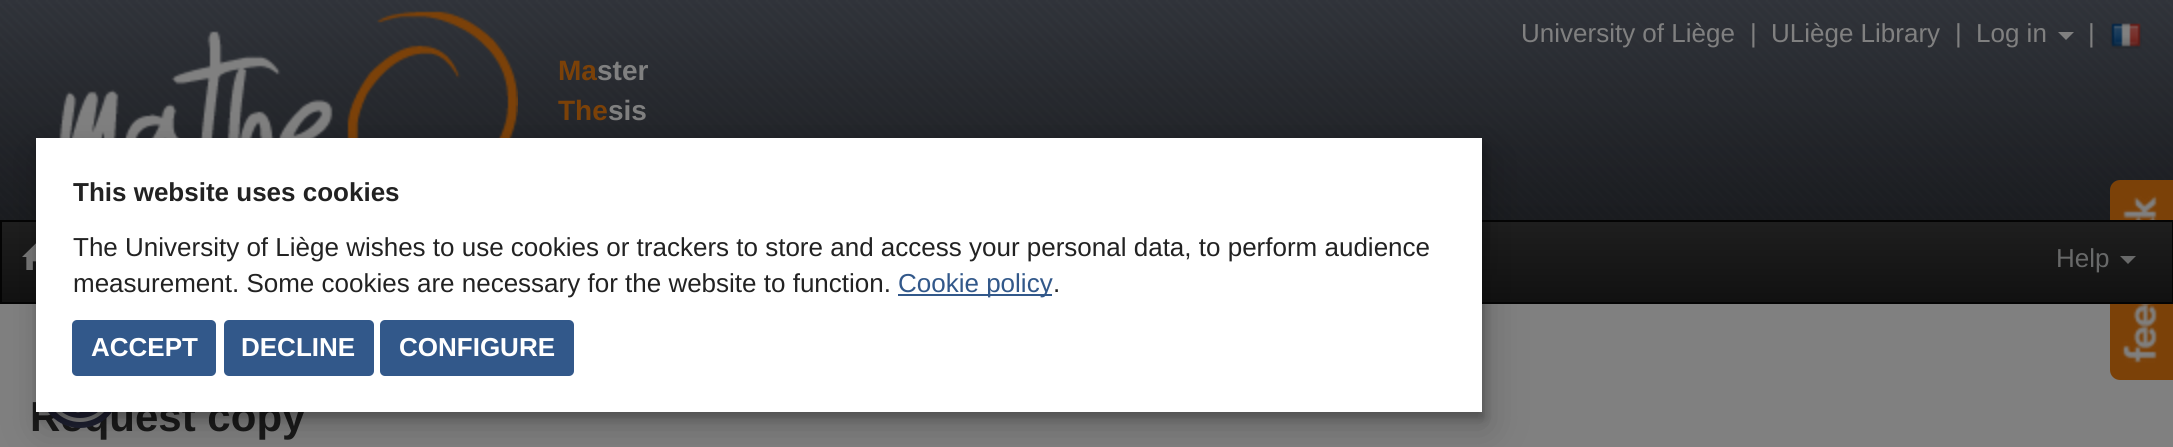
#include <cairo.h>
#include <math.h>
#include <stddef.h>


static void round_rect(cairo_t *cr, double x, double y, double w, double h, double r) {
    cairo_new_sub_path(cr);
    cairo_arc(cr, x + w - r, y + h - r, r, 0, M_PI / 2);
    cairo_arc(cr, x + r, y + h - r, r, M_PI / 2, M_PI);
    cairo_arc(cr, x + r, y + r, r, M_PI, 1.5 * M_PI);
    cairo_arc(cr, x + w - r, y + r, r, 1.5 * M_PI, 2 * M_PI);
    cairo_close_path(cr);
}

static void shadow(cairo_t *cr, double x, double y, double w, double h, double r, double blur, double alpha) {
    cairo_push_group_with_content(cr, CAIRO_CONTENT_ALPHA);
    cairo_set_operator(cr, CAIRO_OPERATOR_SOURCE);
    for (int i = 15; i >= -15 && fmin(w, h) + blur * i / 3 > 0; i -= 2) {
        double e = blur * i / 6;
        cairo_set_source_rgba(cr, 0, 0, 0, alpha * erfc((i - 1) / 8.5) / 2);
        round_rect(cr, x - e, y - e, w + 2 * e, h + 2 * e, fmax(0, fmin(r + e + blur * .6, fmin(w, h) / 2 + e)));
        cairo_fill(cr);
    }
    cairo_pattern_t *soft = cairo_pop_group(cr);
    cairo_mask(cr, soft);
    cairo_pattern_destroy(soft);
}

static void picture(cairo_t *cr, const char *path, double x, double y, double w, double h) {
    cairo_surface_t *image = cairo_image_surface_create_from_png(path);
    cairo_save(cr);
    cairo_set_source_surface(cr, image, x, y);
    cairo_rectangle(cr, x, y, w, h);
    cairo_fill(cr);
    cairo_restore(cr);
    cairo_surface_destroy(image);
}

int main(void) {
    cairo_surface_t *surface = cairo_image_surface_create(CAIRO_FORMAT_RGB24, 2173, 447);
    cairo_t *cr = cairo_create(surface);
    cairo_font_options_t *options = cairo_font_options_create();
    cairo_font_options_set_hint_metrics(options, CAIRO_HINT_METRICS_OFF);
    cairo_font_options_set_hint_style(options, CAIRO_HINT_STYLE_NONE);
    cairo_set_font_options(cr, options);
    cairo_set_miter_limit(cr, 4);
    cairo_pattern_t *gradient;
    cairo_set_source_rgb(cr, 0.502, 0.502, 0.502);
    cairo_paint(cr);
    picture(cr, "img2.png", 0, 0, 2173, 220);
    cairo_select_font_face(cr, "Liberation Sans", CAIRO_FONT_SLANT_NORMAL, CAIRO_FONT_WEIGHT_NORMAL);
    cairo_set_font_size(cr, 26);
    cairo_set_source_rgb(cr, 0.502, 0.502, 0.502);
    cairo_move_to(cr, 1521, 42);
    cairo_show_text(cr, "University of Liège");
    cairo_move_to(cr, 1750, 42);
    cairo_show_text(cr, "|");
    cairo_move_to(cr, 1771, 42);
    cairo_show_text(cr, "ULiège Library");
    cairo_move_to(cr, 1955, 42);
    cairo_show_text(cr, "|");
    cairo_move_to(cr, 1976, 42);
    cairo_show_text(cr, "Log in");
    cairo_new_path(cr);
    cairo_move_to(cr, 2058, 32);
    cairo_line_to(cr, 2074, 32);
    cairo_line_to(cr, 2066, 40);
    cairo_close_path(cr);
    cairo_fill(cr);
    cairo_move_to(cr, 2088, 42);
    cairo_show_text(cr, "|");
    picture(cr, "img1.png", 2110, 23, 32, 26);
    picture(cr, "img3.png", 59, 11, 459, 127);
    cairo_select_font_face(cr, "Liberation Sans", CAIRO_FONT_SLANT_NORMAL, CAIRO_FONT_WEIGHT_BOLD);
    cairo_set_font_size(cr, 28);
    cairo_set_source_rgb(cr, 0.482, 0.255, 0.035);
    cairo_move_to(cr, 558, 80);
    cairo_show_text(cr, "Ma");
    cairo_set_source_rgb(cr, 0.502, 0.502, 0.502);
    cairo_move_to(cr, 597, 80);
    cairo_show_text(cr, "ster");
    cairo_set_source_rgb(cr, 0.482, 0.255, 0.035);
    cairo_move_to(cr, 558, 120);
    cairo_show_text(cr, "The");
    cairo_set_source_rgb(cr, 0.502, 0.502, 0.502);
    cairo_move_to(cr, 608, 120);
    cairo_show_text(cr, "sis");
    cairo_set_source_rgb(cr, 0.482, 0.255, 0.035);
    cairo_new_path(cr);
    cairo_move_to(cr, 2120, 180);
    cairo_line_to(cr, 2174, 180);
    cairo_line_to(cr, 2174, 380);
    cairo_line_to(cr, 2120, 380);
    cairo_curve_to(cr, 2114.5, 380, 2110, 375.5, 2110, 370);
    cairo_line_to(cr, 2110, 190);
    cairo_curve_to(cr, 2110, 184.5, 2114.5, 180, 2120, 180);
    cairo_close_path(cr);
    cairo_fill(cr);
    picture(cr, "img5.png", 2121, 195, 37, 169);
    gradient = cairo_pattern_create_linear(1087, 222, 1087, 302);
    cairo_pattern_add_color_stop_rgba(gradient, 0, 0.118, 0.118, 0.118, 1);
    cairo_pattern_add_color_stop_rgba(gradient, 1, 0.067, 0.067, 0.067, 1);
    cairo_set_source(cr, gradient);
    cairo_pattern_destroy(gradient);
    cairo_rectangle(cr, 2, 222, 2170, 80);
    cairo_fill(cr);
    cairo_rectangle(cr, 1, 221, 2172, 82);
    cairo_set_source_rgb(cr, 0.016, 0.016, 0.016);
    cairo_stroke(cr);
    picture(cr, "img4.png", 22, 243, 14, 27);
    cairo_select_font_face(cr, "Liberation Sans", CAIRO_FONT_SLANT_NORMAL, CAIRO_FONT_WEIGHT_NORMAL);
    cairo_set_font_size(cr, 26);
    cairo_set_source_rgb(cr, 0.408, 0.412, 0.412);
    cairo_move_to(cr, 2056, 267);
    cairo_show_text(cr, "Help");
    cairo_new_path(cr);
    cairo_move_to(cr, 2120, 256);
    cairo_line_to(cr, 2136, 256);
    cairo_line_to(cr, 2128, 264);
    cairo_close_path(cr);
    cairo_fill(cr);
    cairo_select_font_face(cr, "Liberation Sans", CAIRO_FONT_SLANT_NORMAL, CAIRO_FONT_WEIGHT_BOLD);
    cairo_set_font_size(cr, 42);
    cairo_set_source_rgb(cr, 0.102, 0.102, 0.102);
    cairo_move_to(cr, 30, 431);
    cairo_show_text(cr, "Request copy");
    cairo_set_source_rgb(cr, 0.118, 0.125, 0.192);
    cairo_new_path(cr);
    cairo_arc(cr, 80, 388, 40, 0, 2 * M_PI);
    cairo_fill(cr);
    picture(cr, "img6.png", 56, 412, 48, 10);
    cairo_set_source_rgb(cr, 0, 0, 0);
    shadow(cr, 42, 154, 1446, 274, 0, 19.5, 0.2);
    shadow(cr, 38, 144, 1446, 274, 0, 5, 0.25);
    cairo_set_source_rgb(cr, 1, 1, 1);
    cairo_rectangle(cr, 36, 138, 1446, 274);
    cairo_fill(cr);
    cairo_set_font_size(cr, 26);
    cairo_set_source_rgb(cr, 0.133, 0.133, 0.133);
    cairo_move_to(cr, 73, 201);
    cairo_show_text(cr, "This website uses cookies");
    cairo_select_font_face(cr, "Liberation Sans", CAIRO_FONT_SLANT_NORMAL, CAIRO_FONT_WEIGHT_NORMAL);
    cairo_move_to(cr, 73, 256);
    cairo_show_text(cr, "The University of Liège wishes to use cookies or trackers to store and access your personal data, to perform audience");
    cairo_move_to(cr, 73, 292);
    cairo_show_text(cr, "measurement. Some cookies are necessary for the website to function.");
    cairo_set_source_rgb(cr, 0.196, 0.345, 0.541);
    cairo_rectangle(cr, 898, 294, 154, 2);
    cairo_fill(cr);
    cairo_move_to(cr, 898, 292);
    cairo_show_text(cr, "Cookie policy");
    cairo_set_source_rgb(cr, 0.133, 0.133, 0.133);
    cairo_move_to(cr, 1053, 292);
    cairo_show_text(cr, ".");
    cairo_set_source_rgb(cr, 0.196, 0.345, 0.541);
    round_rect(cr, 72, 320, 144, 56, 5);
    cairo_fill(cr);
    cairo_select_font_face(cr, "Liberation Sans", CAIRO_FONT_SLANT_NORMAL, CAIRO_FONT_WEIGHT_BOLD);
    cairo_set_source_rgb(cr, 1, 1, 1);
    cairo_move_to(cr, 91, 356);
    cairo_show_text(cr, "ACCEPT");
    cairo_set_source_rgb(cr, 0.196, 0.345, 0.541);
    round_rect(cr, 224, 320, 150, 56, 5);
    cairo_fill(cr);
    cairo_set_source_rgb(cr, 1, 1, 1);
    cairo_move_to(cr, 241, 356);
    cairo_show_text(cr, "DECLINE");
    cairo_set_source_rgb(cr, 0.196, 0.345, 0.541);
    round_rect(cr, 380, 320, 194, 56, 5);
    cairo_fill(cr);
    cairo_set_source_rgb(cr, 1, 1, 1);
    cairo_move_to(cr, 399, 356);
    cairo_show_text(cr, "CONFIGURE");
    cairo_surface_write_to_png(surface, "page.png");
    cairo_font_options_destroy(options);
    cairo_destroy(cr);
    cairo_surface_destroy(surface);
    return 0;
}
